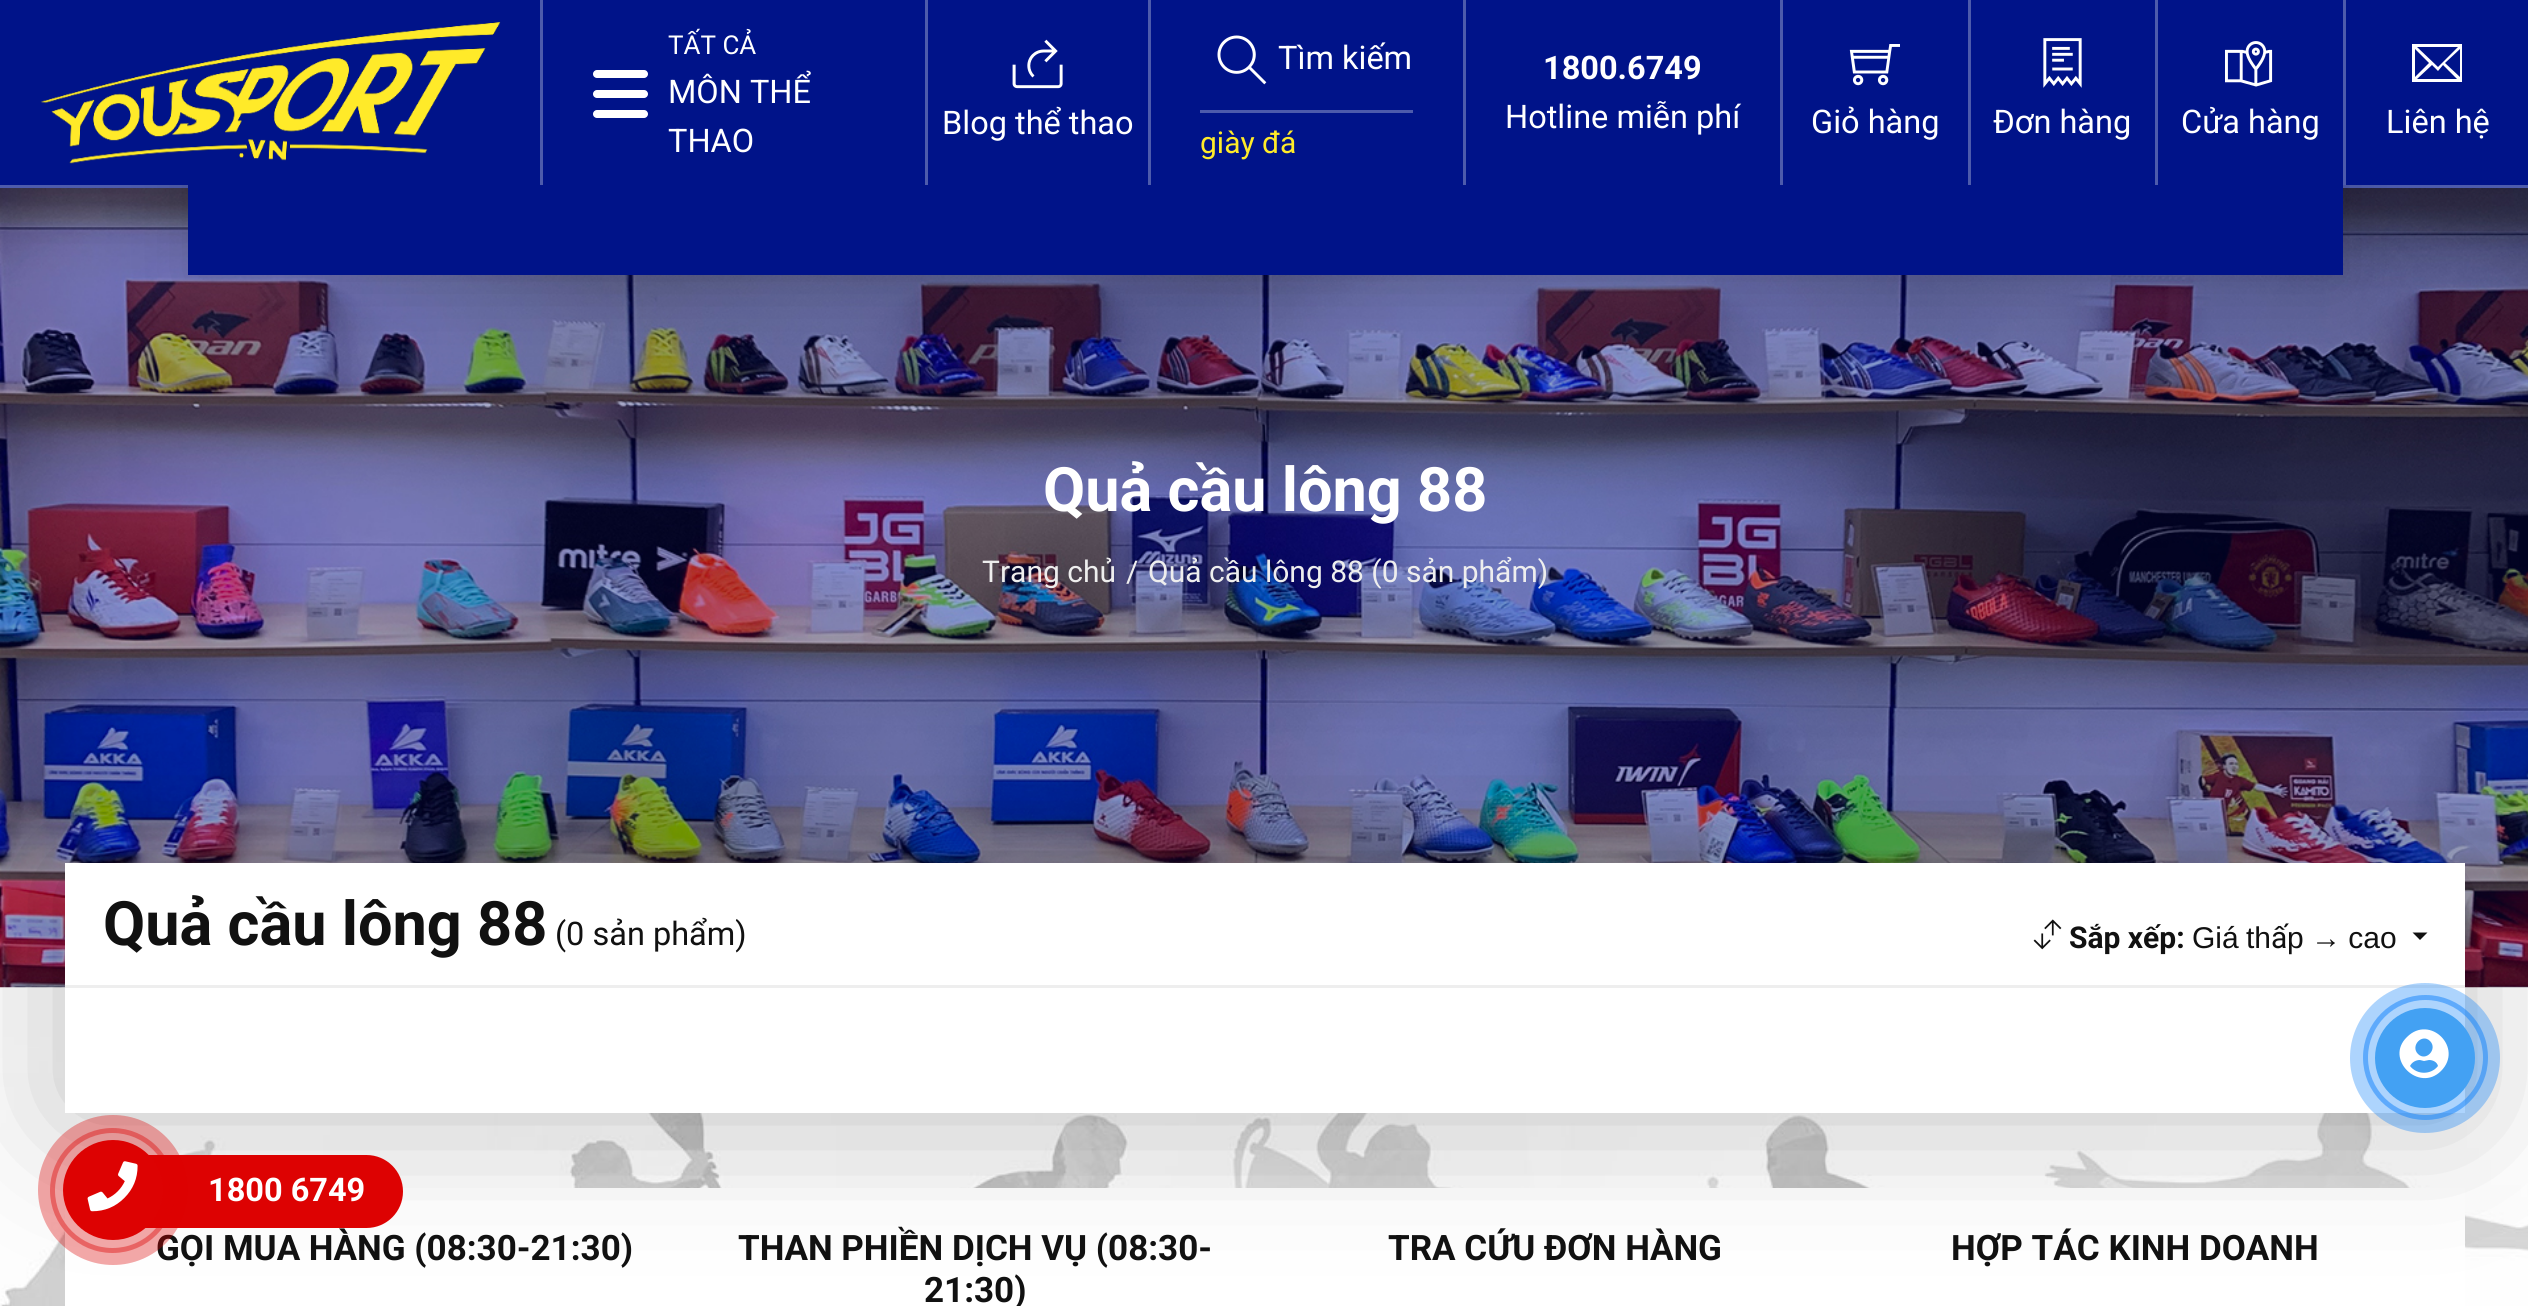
#include <cairo.h>
#include <math.h>
#include <stddef.h>


static void spaced_text(cairo_t *cr, double x, double y, const char *s, double letter, double word) {
    cairo_move_to(cr, x, y);
    while (*s) {
        char ch[5] = {0};
        int n = 0;
        do ch[n++] = *s++; while ((*s & 0xC0) == 0x80);
        cairo_show_text(cr, ch);
        cairo_rel_move_to(cr, letter + word * (*ch == ' '), 0);
    }
}

static void round_rect(cairo_t *cr, double x, double y, double w, double h, double r) {
    cairo_new_sub_path(cr);
    cairo_arc(cr, x + w - r, y + h - r, r, 0, M_PI / 2);
    cairo_arc(cr, x + r, y + h - r, r, M_PI / 2, M_PI);
    cairo_arc(cr, x + r, y + r, r, M_PI, 1.5 * M_PI);
    cairo_arc(cr, x + w - r, y + r, r, 1.5 * M_PI, 2 * M_PI);
    cairo_close_path(cr);
}

static void shadow(cairo_t *cr, double x, double y, double w, double h, double r, double blur, double alpha) {
    cairo_push_group_with_content(cr, CAIRO_CONTENT_ALPHA);
    cairo_set_operator(cr, CAIRO_OPERATOR_SOURCE);
    for (int i = 15; i >= -15 && fmin(w, h) + blur * i / 3 > 0; i -= 2) {
        double e = blur * i / 6;
        cairo_set_source_rgba(cr, 0, 0, 0, alpha * erfc((i - 1) / 8.5) / 2);
        round_rect(cr, x - e, y - e, w + 2 * e, h + 2 * e, fmax(0, fmin(r + e + blur * .6, fmin(w, h) / 2 + e)));
        cairo_fill(cr);
    }
    cairo_pattern_t *soft = cairo_pop_group(cr);
    cairo_mask(cr, soft);
    cairo_pattern_destroy(soft);
}

static void picture(cairo_t *cr, const char *path, double x, double y, double w, double h) {
    cairo_surface_t *image = cairo_image_surface_create_from_png(path);
    cairo_save(cr);
    cairo_set_source_surface(cr, image, x, y);
    cairo_rectangle(cr, x, y, w, h);
    cairo_fill(cr);
    cairo_restore(cr);
    cairo_surface_destroy(image);
}

int main(void) {
    cairo_surface_t *surface = cairo_image_surface_create(CAIRO_FORMAT_RGB24, 2528, 1306);
    cairo_t *cr = cairo_create(surface);
    cairo_font_options_t *options = cairo_font_options_create();
    cairo_font_options_set_hint_metrics(options, CAIRO_HINT_METRICS_OFF);
    cairo_font_options_set_hint_style(options, CAIRO_HINT_STYLE_NONE);
    cairo_set_font_options(cr, options);
    cairo_set_miter_limit(cr, 4);
    cairo_set_source_rgb(cr, 1, 1, 1);
    cairo_paint(cr);
    picture(cr, "img7.png", 0, 188, 2528, 800);
    cairo_set_source_rgb(cr, 0, 0, 0);
    shadow(cr, 0, 13, 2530, 187, 0, 37.5, 0.15);
    cairo_set_source_rgb(cr, 0.302, 0.357, 0.675);
    cairo_rectangle(cr, 0, 185, 2528, 3);
    cairo_fill(cr);
    cairo_set_source_rgb(cr, 0, 0, 0);
    shadow(cr, 188, -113, 2155, 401, 0, 37.5, 0.15);
    cairo_set_source_rgb(cr, 0, 0.078, 0.537);
    cairo_rectangle(cr, 188, 185, 2155, 90);
    cairo_fill(cr);
    cairo_rectangle(cr, 0, 0, 2528, 185);
    cairo_fill(cr);
    cairo_set_source_rgb(cr, 0.302, 0.357, 0.675);
    cairo_rectangle(cr, 540, 0, 3, 185);
    cairo_fill(cr);
    picture(cr, "img1.png", 40, 22, 461, 142);
    cairo_rectangle(cr, 925, 0, 3, 185);
    cairo_fill(cr);
    cairo_set_source_rgb(cr, 1, 1, 1);
    round_rect(cr, 593, 70, 55, 8, 4);
    cairo_fill(cr);
    round_rect(cr, 593, 90, 55, 8, 4);
    cairo_fill(cr);
    round_rect(cr, 593, 110, 55, 8, 4);
    cairo_fill(cr);
    cairo_select_font_face(cr, "Roboto", CAIRO_FONT_SLANT_NORMAL, CAIRO_FONT_WEIGHT_NORMAL);
    cairo_set_font_size(cr, 26);
    cairo_move_to(cr, 668, 54);
    cairo_show_text(cr, "TẤT CẢ");
    cairo_set_font_size(cr, 32.5);
    cairo_move_to(cr, 668, 103);
    cairo_show_text(cr, "MÔN THỂ");
    cairo_move_to(cr, 668, 152);
    cairo_show_text(cr, "THAO");
    cairo_set_source_rgb(cr, 0.302, 0.357, 0.675);
    cairo_rectangle(cr, 1148, 0, 3, 185);
    cairo_fill(cr);
    picture(cr, "img2.png", 1012, 39, 51, 50);
    cairo_set_source_rgb(cr, 1, 1, 1);
    cairo_move_to(cr, 942, 134);
    cairo_show_text(cr, "Blog thể thao");
    picture(cr, "img3.png", 1217, 35, 50, 50);
    cairo_move_to(cr, 1278, 69);
    cairo_show_text(cr, "Tìm kiếm");
    cairo_set_source_rgb(cr, 0.302, 0.357, 0.675);
    cairo_rectangle(cr, 1200, 110, 213, 3);
    cairo_fill(cr);
    cairo_set_font_size(cr, 30);
    cairo_set_source_rgb(cr, 1, 0.918, 0.161);
    cairo_move_to(cr, 1200, 153);
    cairo_show_text(cr, "giày đá");
    cairo_set_source_rgb(cr, 0.302, 0.357, 0.675);
    cairo_rectangle(cr, 1463, 0, 3, 185);
    cairo_fill(cr);
    cairo_select_font_face(cr, "Roboto", CAIRO_FONT_SLANT_NORMAL, CAIRO_FONT_WEIGHT_BOLD);
    cairo_set_font_size(cr, 32.5);
    cairo_set_source_rgb(cr, 1, 1, 1);
    cairo_move_to(cr, 1543, 79);
    cairo_show_text(cr, "1800.6749");
    cairo_select_font_face(cr, "Roboto", CAIRO_FONT_SLANT_NORMAL, CAIRO_FONT_WEIGHT_NORMAL);
    cairo_move_to(cr, 1505, 128);
    cairo_show_text(cr, "Hotline miễn phí");
    cairo_set_source_rgb(cr, 0.302, 0.357, 0.675);
    cairo_rectangle(cr, 1780, 0, 3, 185);
    cairo_fill(cr);
    picture(cr, "img4.png", 1849, 44, 51, 42);
    cairo_set_source_rgb(cr, 1, 1, 1);
    cairo_move_to(cr, 1811, 133);
    cairo_show_text(cr, "Giỏ hàng");
    cairo_set_source_rgb(cr, 0.302, 0.357, 0.675);
    cairo_rectangle(cr, 1968, 0, 3, 185);
    cairo_fill(cr);
    picture(cr, "img5.png", 2043, 38, 39, 50);
    cairo_set_source_rgb(cr, 1, 1, 1);
    cairo_move_to(cr, 1993, 133);
    cairo_show_text(cr, "Đơn hàng");
    cairo_set_source_rgb(cr, 0.302, 0.357, 0.675);
    cairo_rectangle(cr, 2155, 0, 3, 185);
    cairo_fill(cr);
    picture(cr, "img6.png", 2225, 41, 48, 46);
    cairo_set_source_rgb(cr, 1, 1, 1);
    cairo_move_to(cr, 2181, 133);
    cairo_show_text(cr, "Cửa hàng");
    cairo_set_source_rgb(cr, 0.302, 0.357, 0.675);
    cairo_rectangle(cr, 2343, 0, 3, 185);
    cairo_fill(cr);
    cairo_set_source_rgb(cr, 1, 1, 1);
    cairo_new_path(cr);
    cairo_move_to(cr, 2412, 44);
    cairo_line_to(cr, 2412, 82);
    cairo_line_to(cr, 2462, 82);
    cairo_line_to(cr, 2462, 44);
    cairo_close_path(cr);
    cairo_move_to(cr, 2438, 67);
    cairo_line_to(cr, 2417, 47);
    cairo_line_to(cr, 2458, 47);
    cairo_close_path(cr);
    cairo_move_to(cr, 2429, 63);
    cairo_line_to(cr, 2415, 77);
    cairo_line_to(cr, 2415, 49);
    cairo_close_path(cr);
    cairo_move_to(cr, 2432, 65);
    cairo_line_to(cr, 2438, 71);
    cairo_line_to(cr, 2443, 65);
    cairo_line_to(cr, 2457, 79);
    cairo_line_to(cr, 2417, 79);
    cairo_close_path(cr);
    cairo_move_to(cr, 2445, 63);
    cairo_line_to(cr, 2460, 49);
    cairo_line_to(cr, 2460, 77);
    cairo_close_path(cr);
    cairo_fill(cr);
    cairo_move_to(cr, 2386, 133);
    cairo_show_text(cr, "Liên hệ");
    cairo_select_font_face(cr, "Roboto", CAIRO_FONT_SLANT_NORMAL, CAIRO_FONT_WEIGHT_BOLD);
    cairo_set_font_size(cr, 61.25);
    cairo_move_to(cr, 1043, 511);
    cairo_show_text(cr, "Quả cầu lông 88");
    cairo_select_font_face(cr, "Roboto", CAIRO_FONT_SLANT_NORMAL, CAIRO_FONT_WEIGHT_NORMAL);
    cairo_set_font_size(cr, 30);
    cairo_set_source_rgb(cr, 0.933, 0.933, 0.933);
    cairo_move_to(cr, 982, 582);
    cairo_show_text(cr, "Trang chủ");
    cairo_move_to(cr, 1126, 582);
    cairo_show_text(cr, "/");
    cairo_move_to(cr, 1148, 582);
    cairo_show_text(cr, "Quả cầu lông 88 (0 sản phẩm)");
    picture(cr, "img10.png", 0, 987, 2528, 319);
    cairo_set_source_rgb(cr, 1, 1, 1);
    cairo_rectangle(cr, 65, 1188, 2400, 118);
    cairo_fill(cr);
    cairo_set_source_rgb(cr, 0, 0, 0);
    shadow(cr, 65, 863, 2400, 250, 0, 75, 0.25);
    cairo_set_source_rgb(cr, 1, 1, 1);
    cairo_rectangle(cr, 65, 863, 2400, 250);
    cairo_fill(cr);
    cairo_set_source_rgb(cr, 0.933, 0.933, 0.933);
    cairo_rectangle(cr, 65, 985, 2400, 3);
    cairo_fill(cr);
    cairo_select_font_face(cr, "Roboto", CAIRO_FONT_SLANT_NORMAL, CAIRO_FONT_WEIGHT_BOLD);
    cairo_set_font_size(cr, 61.25);
    cairo_set_source_rgb(cr, 0.067, 0.067, 0.067);
    cairo_move_to(cr, 103, 945);
    cairo_show_text(cr, "Quả cầu lông 88");
    cairo_select_font_face(cr, "Roboto", CAIRO_FONT_SLANT_NORMAL, CAIRO_FONT_WEIGHT_NORMAL);
    cairo_set_font_size(cr, 32.5);
    cairo_move_to(cr, 555, 945);
    cairo_show_text(cr, "(0 sản phẩm)");
    picture(cr, "img8.png", 2033, 919, 29, 31);
    cairo_select_font_face(cr, "Roboto", CAIRO_FONT_SLANT_NORMAL, CAIRO_FONT_WEIGHT_BOLD);
    cairo_set_font_size(cr, 30);
    cairo_move_to(cr, 2069, 948);
    cairo_show_text(cr, "Sắp xếp:");
    cairo_select_font_face(cr, "Liberation Sans", CAIRO_FONT_SLANT_NORMAL, CAIRO_FONT_WEIGHT_NORMAL);
    spaced_text(cr, 2192, 948, "Giá th", 0, -1);
    cairo_select_font_face(cr, "Roboto", CAIRO_FONT_SLANT_NORMAL, CAIRO_FONT_WEIGHT_NORMAL);
    cairo_move_to(cr, 2271, 948);
    cairo_show_text(cr, "ấ");
    cairo_select_font_face(cr, "Liberation Sans", CAIRO_FONT_SLANT_NORMAL, CAIRO_FONT_WEIGHT_NORMAL);
    spaced_text(cr, 2287, 948, "p → cao", 0, -1);
    cairo_new_path(cr);
    cairo_move_to(cr, 2412.5, 932.5);
    cairo_line_to(cr, 2427.5, 932.5);
    cairo_line_to(cr, 2420, 940);
    cairo_close_path(cr);
    cairo_fill(cr);
    cairo_arc(cr, 2425.5, 1057.5, 60, 0, 2 * M_PI);
    cairo_set_source_rgba(cr, 0.067, 0.51, 0.988, 0.5);
    cairo_set_line_width(cr, 5);
    cairo_stroke(cr);
    cairo_set_source_rgba(cr, 0.067, 0.51, 0.988, 0.34);
    cairo_arc(cr, 2425, 1058, 75, 0, 2 * M_PI);
    cairo_fill(cr);
    cairo_set_source_rgb(cr, 0.263, 0.631, 0.953);
    cairo_arc(cr, 2425, 1058, 50, 0, 2 * M_PI);
    cairo_fill(cr);
    cairo_set_source_rgb(cr, 1, 1, 1);
    cairo_new_path(cr);
    cairo_move_to(cr, 2407, 1037);
    cairo_curve_to(cr, 2430, 1014, 2464, 1048, 2441, 1071);
    cairo_curve_to(cr, 2419, 1093, 2384, 1059, 2407, 1037);
    cairo_close_path(cr);
    cairo_move_to(cr, 2430, 1041);
    cairo_curve_to(cr, 2422, 1033, 2410, 1046, 2418, 1054);
    cairo_curve_to(cr, 2426, 1062, 2438, 1049, 2430, 1041);
    cairo_close_path(cr);
    cairo_move_to(cr, 2410, 1066);
    cairo_curve_to(cr, 2417, 1075, 2431, 1075, 2438, 1066);
    cairo_curve_to(cr, 2437, 1062, 2433, 1060, 2429, 1060);
    cairo_line_to(cr, 2424, 1061);
    cairo_line_to(cr, 2420, 1060);
    cairo_curve_to(cr, 2416, 1060, 2412, 1062, 2410, 1066);
    cairo_close_path(cr);
    cairo_fill(cr);
    cairo_set_source_rgb(cr, 0.867, 0.008, 0.008);
    round_rect(cr, 95, 1155, 308, 73, 36.5);
    cairo_fill(cr);
    cairo_select_font_face(cr, "Roboto", CAIRO_FONT_SLANT_NORMAL, CAIRO_FONT_WEIGHT_BOLD);
    cairo_set_font_size(cr, 35);
    cairo_set_source_rgb(cr, 0.067, 0.067, 0.067);
    cairo_move_to(cr, 156, 1260);
    cairo_show_text(cr, "GỌI MUA HÀNG (08:30-21:30)");
    cairo_new_path(cr);
    cairo_arc(cr, 112.5, 1190.5, 60, 0, 2 * M_PI);
    cairo_set_source_rgba(cr, 0.867, 0.008, 0.008, 0.4);
    cairo_stroke(cr);
    cairo_set_source_rgba(cr, 0.867, 0.008, 0.008, 0.34);
    cairo_arc(cr, 113, 1190, 75, 0, 2 * M_PI);
    cairo_fill(cr);
    cairo_set_source_rgb(cr, 0.867, 0.008, 0.008);
    cairo_arc(cr, 113, 1190, 50, 0, 2 * M_PI);
    cairo_fill(cr);
    picture(cr, "img9.png", 87, 1161, 51, 51);
    cairo_set_font_size(cr, 32.5);
    cairo_set_source_rgb(cr, 1, 1, 1);
    cairo_move_to(cr, 208, 1201);
    cairo_show_text(cr, "1800 6749");
    cairo_set_font_size(cr, 35);
    cairo_set_source_rgb(cr, 0.067, 0.067, 0.067);
    cairo_move_to(cr, 738, 1260);
    cairo_show_text(cr, "THAN PHIỀN DỊCH VỤ (08:30-");
    cairo_move_to(cr, 924, 1302);
    cairo_show_text(cr, "21:30)");
    cairo_move_to(cr, 1388, 1260);
    cairo_show_text(cr, "TRA CỨU ĐƠN HÀNG");
    cairo_move_to(cr, 1951, 1260);
    cairo_show_text(cr, "HỢP TÁC KINH DOANH");
    cairo_surface_write_to_png(surface, "page.png");
    cairo_font_options_destroy(options);
    cairo_destroy(cr);
    cairo_surface_destroy(surface);
    return 0;
}
